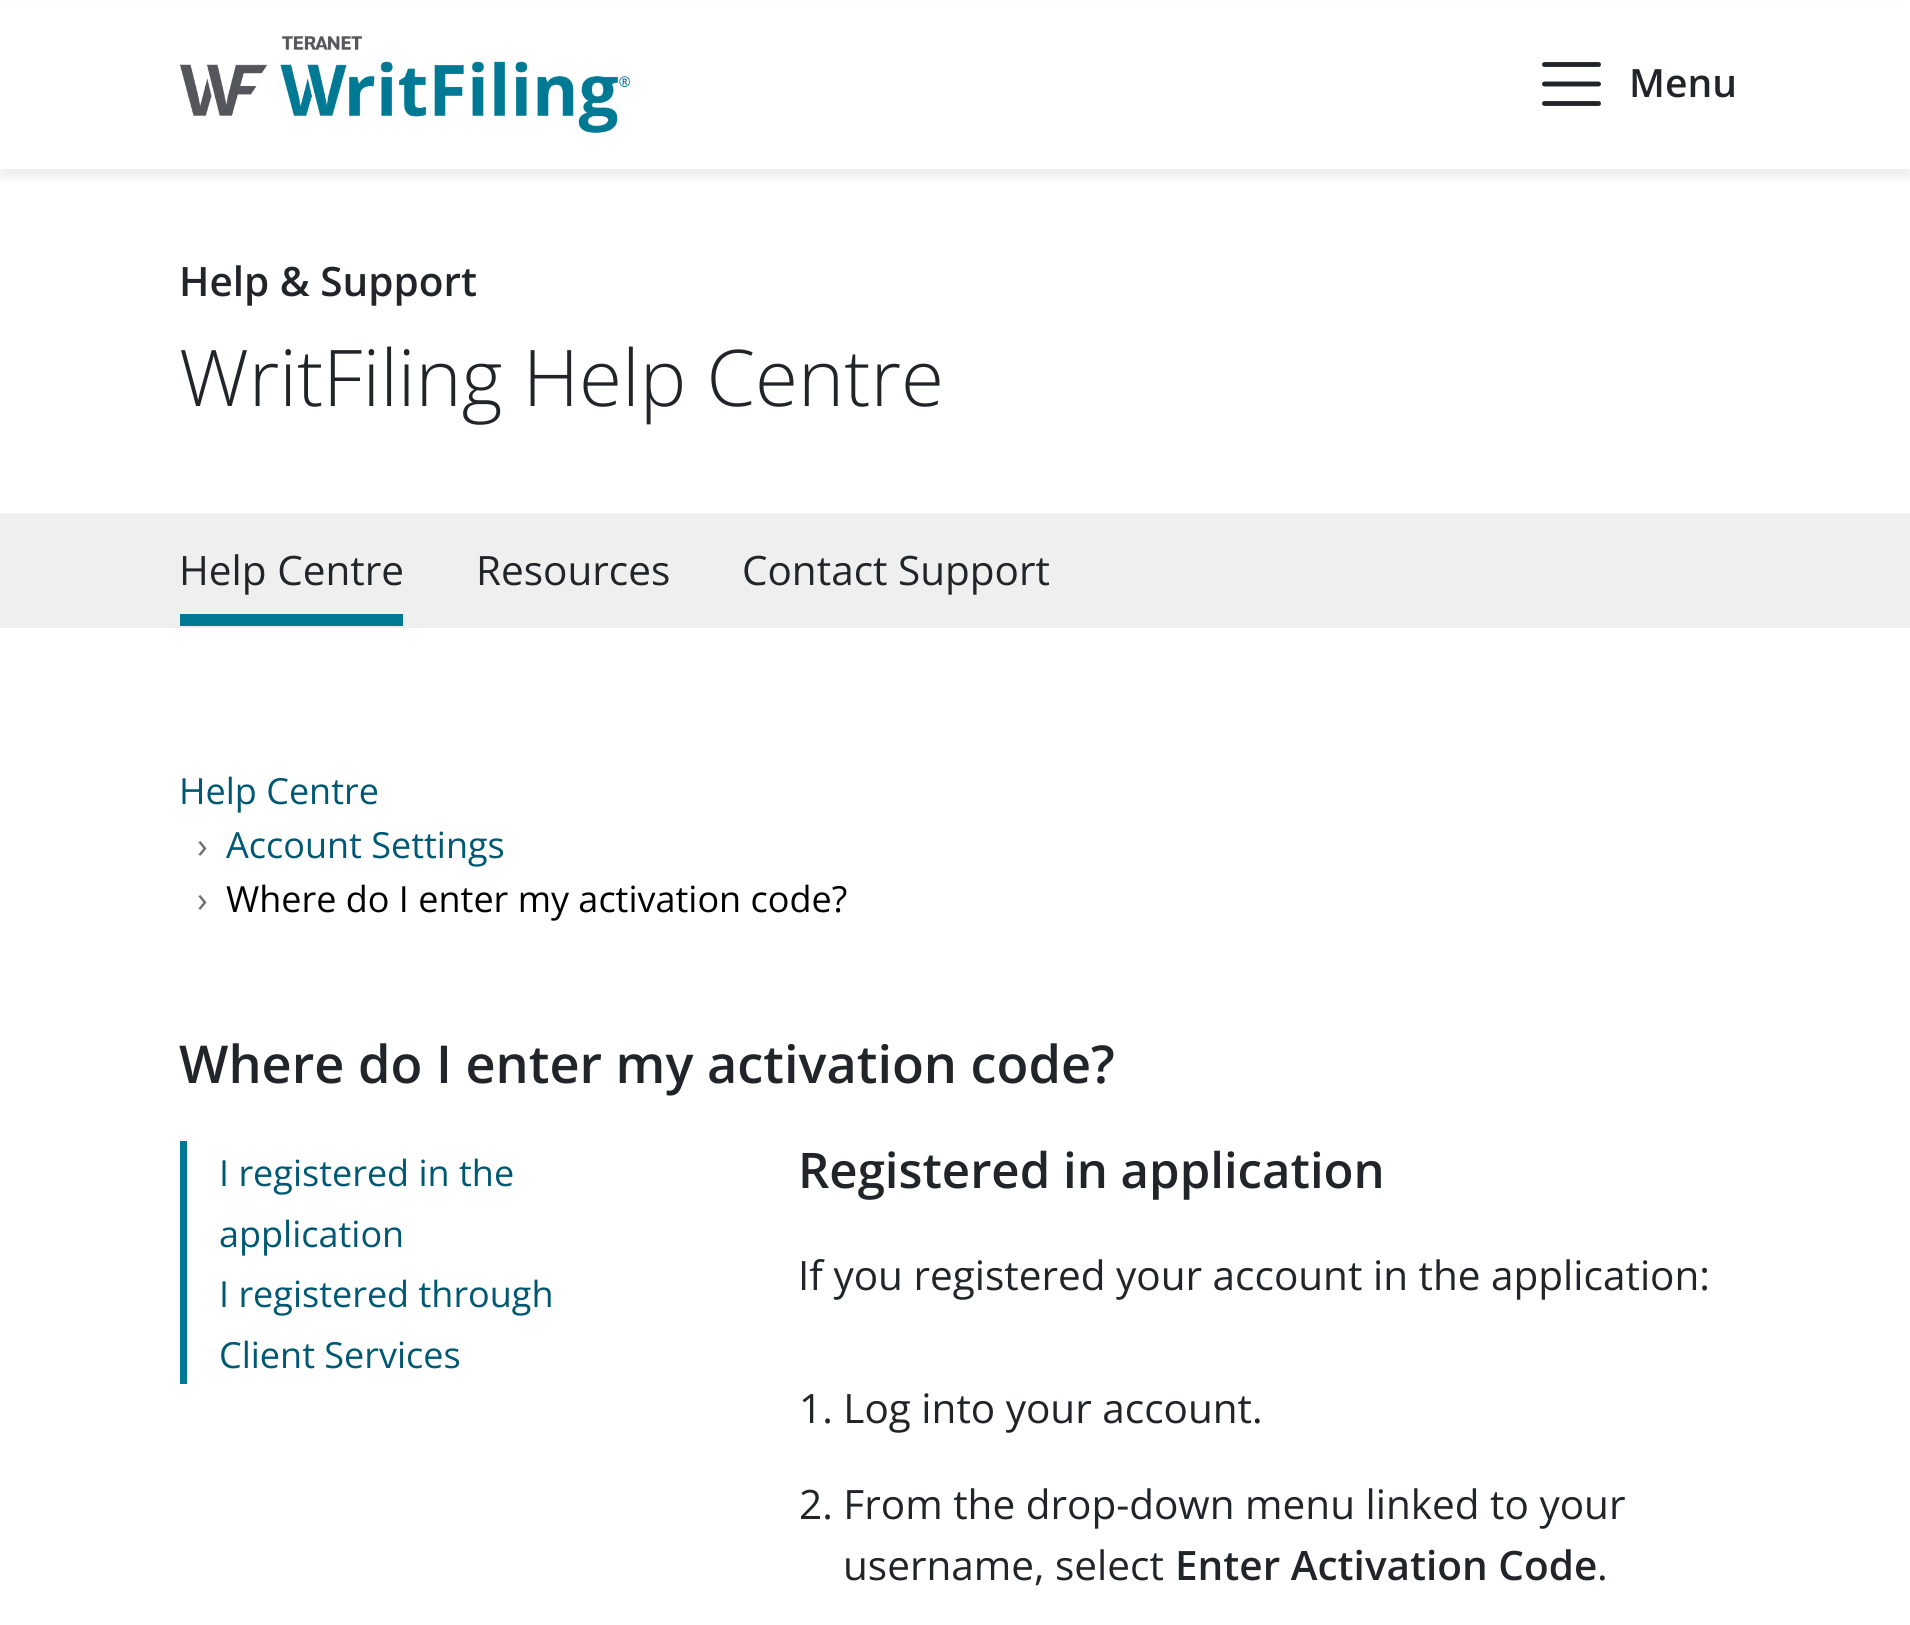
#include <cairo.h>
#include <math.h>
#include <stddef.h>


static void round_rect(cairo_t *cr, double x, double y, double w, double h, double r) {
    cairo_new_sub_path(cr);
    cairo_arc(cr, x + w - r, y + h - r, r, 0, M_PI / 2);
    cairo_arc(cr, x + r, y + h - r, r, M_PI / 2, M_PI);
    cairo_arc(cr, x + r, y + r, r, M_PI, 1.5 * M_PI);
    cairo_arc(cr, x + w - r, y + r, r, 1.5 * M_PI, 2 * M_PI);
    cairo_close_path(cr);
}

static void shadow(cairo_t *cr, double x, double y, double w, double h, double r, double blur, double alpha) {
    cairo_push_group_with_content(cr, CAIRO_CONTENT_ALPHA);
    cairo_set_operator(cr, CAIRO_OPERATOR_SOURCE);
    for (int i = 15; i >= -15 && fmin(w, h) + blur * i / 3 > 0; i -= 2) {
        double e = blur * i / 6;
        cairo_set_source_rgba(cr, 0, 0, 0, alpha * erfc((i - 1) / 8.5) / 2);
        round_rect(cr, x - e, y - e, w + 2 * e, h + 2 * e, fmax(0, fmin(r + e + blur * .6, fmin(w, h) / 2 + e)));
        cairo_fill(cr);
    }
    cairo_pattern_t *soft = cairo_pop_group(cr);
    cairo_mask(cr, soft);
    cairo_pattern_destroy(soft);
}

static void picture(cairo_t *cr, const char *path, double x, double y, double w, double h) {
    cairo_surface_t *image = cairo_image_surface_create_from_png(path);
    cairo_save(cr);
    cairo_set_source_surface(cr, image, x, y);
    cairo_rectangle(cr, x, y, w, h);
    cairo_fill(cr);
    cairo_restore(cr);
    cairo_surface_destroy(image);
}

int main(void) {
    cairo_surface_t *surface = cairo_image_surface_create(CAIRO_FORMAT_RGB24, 1910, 1625);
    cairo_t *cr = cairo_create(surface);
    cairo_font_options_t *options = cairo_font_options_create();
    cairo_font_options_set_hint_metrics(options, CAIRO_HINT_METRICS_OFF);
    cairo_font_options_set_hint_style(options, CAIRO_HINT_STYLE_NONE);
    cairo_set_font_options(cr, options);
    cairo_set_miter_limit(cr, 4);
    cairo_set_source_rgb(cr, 1, 1, 1);
    cairo_paint(cr);
    cairo_set_source_rgb(cr, 0, 0, 0);
    shadow(cr, 0, 9, 1910, 169, 0, 4.5, 0.07);
    cairo_set_source_rgb(cr, 1, 1, 1);
    cairo_rectangle(cr, 0, 4, 1910, 165);
    cairo_fill(cr);
    picture(cr, "img1.png", 180, 36, 450, 97);
    cairo_new_path(cr);
    cairo_move_to(cr, 1544.5, 64.5);
    cairo_line_to(cr, 1598.5, 64.5);
    cairo_move_to(cr, 1544.5, 84);
    cairo_line_to(cr, 1598.5, 84);
    cairo_move_to(cr, 1544.5, 103.5);
    cairo_line_to(cr, 1598.5, 103.5);
    cairo_set_source_rgb(cr, 0.129, 0.145, 0.161);
    cairo_set_line_width(cr, 4.9);
    cairo_set_line_cap(cr, CAIRO_LINE_CAP_ROUND);
    cairo_stroke(cr);
    cairo_select_font_face(cr, "Open Sans SemiBold", CAIRO_FONT_SLANT_NORMAL, CAIRO_FONT_WEIGHT_NORMAL);
    cairo_set_font_size(cr, 39);
    cairo_move_to(cr, 1629, 97);
    cairo_show_text(cr, "Menu");
    cairo_set_font_size(cr, 40.5);
    cairo_move_to(cr, 179, 296);
    cairo_show_text(cr, "Help & Support");
    cairo_select_font_face(cr, "Open Sans Light", CAIRO_FONT_SLANT_NORMAL, CAIRO_FONT_WEIGHT_NORMAL);
    cairo_set_font_size(cr, 78.25);
    cairo_move_to(cr, 179, 406);
    cairo_show_text(cr, "WritFiling Help Centre");
    cairo_set_source_rgb(cr, 0.937, 0.937, 0.937);
    cairo_rectangle(cr, 0, 513, 1910, 115);
    cairo_fill(cr);
    cairo_select_font_face(cr, "Open Sans", CAIRO_FONT_SLANT_NORMAL, CAIRO_FONT_WEIGHT_NORMAL);
    cairo_set_font_size(cr, 40.5);
    cairo_set_source_rgb(cr, 0.129, 0.145, 0.161);
    cairo_move_to(cr, 179, 585);
    cairo_show_text(cr, "Help Centre");
    cairo_set_source_rgb(cr, 0, 0.475, 0.58);
    cairo_rectangle(cr, 180, 614, 223, 12);
    cairo_fill(cr);
    cairo_set_source_rgb(cr, 0.129, 0.145, 0.161);
    cairo_move_to(cr, 476, 585);
    cairo_show_text(cr, "Resources");
    cairo_move_to(cr, 742, 585);
    cairo_show_text(cr, "Contact Support");
    cairo_set_font_size(cr, 36);
    cairo_set_source_rgb(cr, 0, 0.345, 0.447);
    cairo_move_to(cr, 179, 804);
    cairo_show_text(cr, "Help Centre");
    cairo_set_source_rgb(cr, 0.439, 0.439, 0.439);
    cairo_move_to(cr, 197, 858);
    cairo_show_text(cr, "›");
    cairo_set_source_rgb(cr, 0, 0.345, 0.447);
    cairo_move_to(cr, 226, 858);
    cairo_show_text(cr, "Account Settings");
    cairo_set_source_rgb(cr, 0.439, 0.439, 0.439);
    cairo_move_to(cr, 197, 912);
    cairo_show_text(cr, "›");
    cairo_set_source_rgb(cr, 0, 0, 0);
    cairo_move_to(cr, 226, 912);
    cairo_show_text(cr, "Where do I enter my activation code?");
    cairo_select_font_face(cr, "Open Sans SemiBold", CAIRO_FONT_SLANT_NORMAL, CAIRO_FONT_WEIGHT_NORMAL);
    cairo_set_font_size(cr, 52.25);
    cairo_set_source_rgb(cr, 0.129, 0.145, 0.161);
    cairo_move_to(cr, 179, 1083);
    cairo_show_text(cr, "Where do I enter my activation code?");
    cairo_set_source_rgb(cr, 0, 0.475, 0.58);
    cairo_rectangle(cr, 180, 1141, 7, 243);
    cairo_fill(cr);
    cairo_select_font_face(cr, "Open Sans", CAIRO_FONT_SLANT_NORMAL, CAIRO_FONT_WEIGHT_NORMAL);
    cairo_set_font_size(cr, 36);
    cairo_set_source_rgb(cr, 0, 0.345, 0.447);
    cairo_move_to(cr, 219, 1186);
    cairo_show_text(cr, "I registered in the");
    cairo_move_to(cr, 219, 1247);
    cairo_show_text(cr, "application");
    cairo_move_to(cr, 219, 1307);
    cairo_show_text(cr, "I registered through");
    cairo_move_to(cr, 219, 1368);
    cairo_show_text(cr, "Client Services");
    cairo_select_font_face(cr, "Open Sans SemiBold", CAIRO_FONT_SLANT_NORMAL, CAIRO_FONT_WEIGHT_NORMAL);
    cairo_set_font_size(cr, 49.1);
    cairo_set_source_rgb(cr, 0.129, 0.145, 0.161);
    cairo_move_to(cr, 798, 1188);
    cairo_show_text(cr, "Registered in application");
    cairo_select_font_face(cr, "Open Sans", CAIRO_FONT_SLANT_NORMAL, CAIRO_FONT_WEIGHT_NORMAL);
    cairo_set_font_size(cr, 40.5);
    cairo_move_to(cr, 798, 1290);
    cairo_show_text(cr, "If you registered your account in the application:");
    cairo_move_to(cr, 799, 1423);
    cairo_show_text(cr, "1. Log into your account.");
    cairo_move_to(cr, 799, 1519);
    cairo_show_text(cr, "2. From the drop-down menu linked to your");
    cairo_move_to(cr, 843, 1580);
    cairo_show_text(cr, "username, select");
    cairo_select_font_face(cr, "Open Sans SemiBold", CAIRO_FONT_SLANT_NORMAL, CAIRO_FONT_WEIGHT_NORMAL);
    cairo_move_to(cr, 1175, 1580);
    cairo_show_text(cr, "Enter Activation Code");
    cairo_select_font_face(cr, "Open Sans", CAIRO_FONT_SLANT_NORMAL, CAIRO_FONT_WEIGHT_NORMAL);
    cairo_move_to(cr, 1597, 1580);
    cairo_show_text(cr, ".");
    cairo_surface_write_to_png(surface, "page.png");
    cairo_font_options_destroy(options);
    cairo_destroy(cr);
    cairo_surface_destroy(surface);
    return 0;
}
